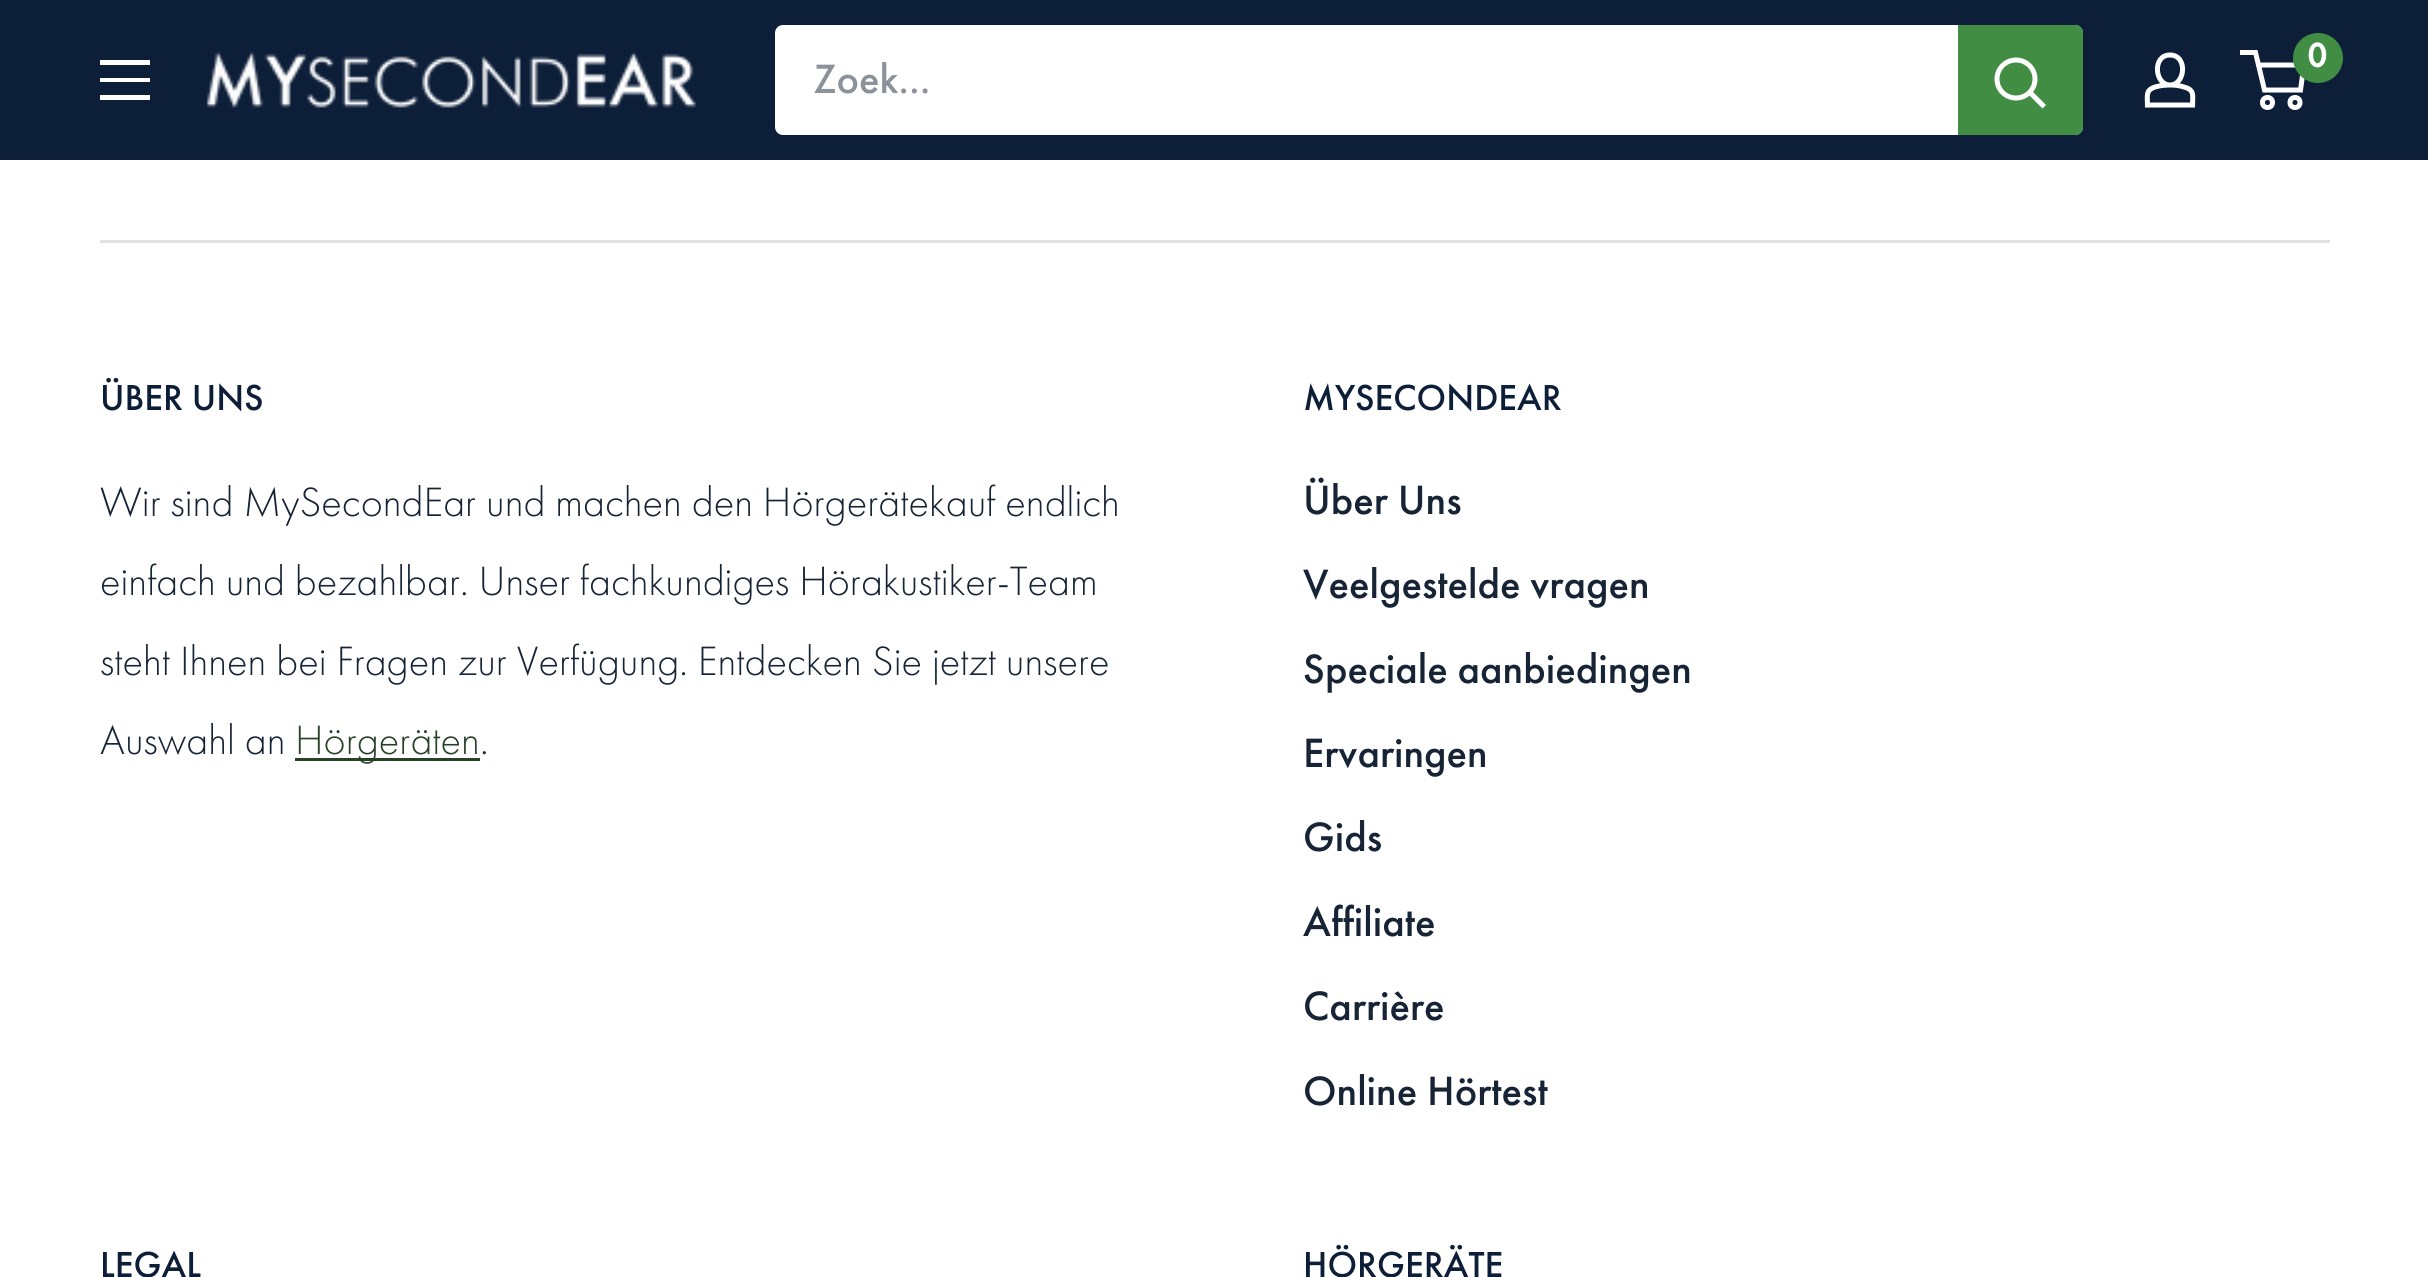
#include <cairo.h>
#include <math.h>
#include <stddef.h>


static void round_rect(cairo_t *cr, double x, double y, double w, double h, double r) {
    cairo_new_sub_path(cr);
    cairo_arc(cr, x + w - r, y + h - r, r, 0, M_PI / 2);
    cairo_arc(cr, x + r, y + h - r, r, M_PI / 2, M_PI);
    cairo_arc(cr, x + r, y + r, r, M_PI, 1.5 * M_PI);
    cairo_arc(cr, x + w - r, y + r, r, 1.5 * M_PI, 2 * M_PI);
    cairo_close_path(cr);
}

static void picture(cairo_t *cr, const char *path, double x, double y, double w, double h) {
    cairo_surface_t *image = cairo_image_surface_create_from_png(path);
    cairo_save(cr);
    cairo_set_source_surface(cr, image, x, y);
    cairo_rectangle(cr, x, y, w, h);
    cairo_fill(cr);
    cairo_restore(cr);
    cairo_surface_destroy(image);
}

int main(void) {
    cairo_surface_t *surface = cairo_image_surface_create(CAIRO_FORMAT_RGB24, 2428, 1277);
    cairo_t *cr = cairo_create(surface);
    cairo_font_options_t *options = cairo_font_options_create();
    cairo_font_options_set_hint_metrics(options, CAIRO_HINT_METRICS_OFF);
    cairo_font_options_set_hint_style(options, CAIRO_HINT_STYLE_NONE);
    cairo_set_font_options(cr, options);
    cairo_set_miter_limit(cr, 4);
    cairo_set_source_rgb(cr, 1, 1, 1);
    cairo_paint(cr);
    cairo_set_source_rgb(cr, 0.047, 0.118, 0.22);
    cairo_rectangle(cr, 0, 0, 2428, 160);
    cairo_fill(cr);
    cairo_set_source_rgb(cr, 1, 1, 1);
    cairo_set_fill_rule(cr, CAIRO_FILL_RULE_EVEN_ODD);
    cairo_new_path(cr);
    cairo_move_to(cr, 100, 95);
    cairo_line_to(cr, 150, 95);
    cairo_line_to(cr, 150, 100);
    cairo_line_to(cr, 100, 100);
    cairo_close_path(cr);
    cairo_move_to(cr, 100, 60);
    cairo_line_to(cr, 150, 60);
    cairo_line_to(cr, 150, 65);
    cairo_line_to(cr, 100, 65);
    cairo_close_path(cr);
    cairo_move_to(cr, 100, 78);
    cairo_line_to(cr, 150, 78);
    cairo_line_to(cr, 150, 82);
    cairo_line_to(cr, 100, 82);
    cairo_close_path(cr);
    cairo_fill(cr);
    picture(cr, "img1.png", 206, 51, 491, 57);
    round_rect(cr, 775, 25, 1308, 110, 8);
    cairo_fill(cr);
    cairo_select_font_face(cr, "Futura PT Medium", CAIRO_FONT_SLANT_NORMAL, CAIRO_FONT_WEIGHT_NORMAL);
    cairo_set_font_size(cr, 42.5);
    cairo_set_source_rgb(cr, 0.545, 0.573, 0.604);
    cairo_move_to(cr, 813, 93);
    cairo_show_text(cr, "Zoek...");
    cairo_set_source_rgb(cr, 0.255, 0.553, 0.267);
    cairo_new_path(cr);
    cairo_move_to(cr, 1958, 25);
    cairo_line_to(cr, 2075, 25);
    cairo_curve_to(cr, 2079.5, 25, 2083, 28.5, 2083, 33);
    cairo_line_to(cr, 2083, 127);
    cairo_curve_to(cr, 2083, 131.5, 2079.5, 135, 2075, 135);
    cairo_line_to(cr, 1958, 135);
    cairo_close_path(cr);
    cairo_fill(cr);
    cairo_new_path(cr);
    cairo_move_to(cr, 2042.5, 105);
    cairo_line_to(cr, 2030, 92.5);
    cairo_set_source_rgb(cr, 1, 1, 1);
    cairo_set_line_width(cr, 5);
    cairo_set_line_cap(cr, CAIRO_LINE_CAP_SQUARE);
    cairo_stroke(cr);
    cairo_arc(cr, 2016, 79, 19, 0, 2 * M_PI);
    cairo_set_line_cap(cr, CAIRO_LINE_CAP_BUTT);
    cairo_stroke(cr);
    cairo_new_path(cr);
    cairo_move_to(cr, 2170, 85);
    cairo_curve_to(cr, 2174.5, 85, 2179.5, 85.5, 2184, 87);
    cairo_curve_to(cr, 2195, 90, 2192.5, 95.5, 2192.5, 105);
    cairo_line_to(cr, 2147.5, 105);
    cairo_curve_to(cr, 2147.5, 95, 2145, 89.5, 2157, 86.5);
    cairo_curve_to(cr, 2161, 85.5, 2165.5, 85, 2170, 85);
    cairo_close_path(cr);
    cairo_move_to(cr, 2170, 85);
    cairo_curve_to(cr, 2154.5, 85, 2152, 55, 2170, 55);
    cairo_curve_to(cr, 2188, 55, 2185.5, 85, 2170, 85);
    cairo_close_path(cr);
    cairo_stroke(cr);
    cairo_arc(cr, 2267.5, 102.5, 5, 0, 2 * M_PI);
    cairo_stroke(cr);
    cairo_arc(cr, 2295, 102.5, 5, 0, 2 * M_PI);
    cairo_stroke(cr);
    cairo_new_path(cr);
    cairo_move_to(cr, 2258.5, 65);
    cairo_line_to(cr, 2304, 65);
    cairo_line_to(cr, 2300.5, 90);
    cairo_line_to(cr, 2264.5, 90);
    cairo_line_to(cr, 2255.5, 52.5);
    cairo_line_to(cr, 2240, 52.5);
    cairo_stroke(cr);
    cairo_set_source_rgb(cr, 0.255, 0.553, 0.267);
    cairo_arc(cr, 2318, 58, 25, 0, 2 * M_PI);
    cairo_fill(cr);
    cairo_select_font_face(cr, "Futura PT", CAIRO_FONT_SLANT_NORMAL, CAIRO_FONT_WEIGHT_BOLD);
    cairo_set_font_size(cr, 35);
    cairo_set_source_rgb(cr, 1, 1, 1);
    cairo_move_to(cr, 2307, 67);
    cairo_show_text(cr, "0");
    cairo_set_source_rgb(cr, 0.894, 0.882, 0.882);
    cairo_rectangle(cr, 100, 240, 2230, 3);
    cairo_fill(cr);
    cairo_select_font_face(cr, "Futura PT Medium", CAIRO_FONT_SLANT_NORMAL, CAIRO_FONT_WEIGHT_NORMAL);
    cairo_set_font_size(cr, 37.5);
    cairo_set_source_rgb(cr, 0.047, 0.118, 0.22);
    cairo_move_to(cr, 100, 410);
    cairo_show_text(cr, "ÜBER UNS");
    cairo_select_font_face(cr, "Futura PT Light", CAIRO_FONT_SLANT_NORMAL, CAIRO_FONT_WEIGHT_NORMAL);
    cairo_set_font_size(cr, 42.5);
    cairo_set_source_rgb(cr, 0.086, 0.141, 0.208);
    cairo_move_to(cr, 100, 516);
    cairo_show_text(cr, "Wir sind MySecondEar und machen den Hörgerätekauf endlich");
    cairo_move_to(cr, 100, 595);
    cairo_show_text(cr, "einfach und bezahlbar. Unser fachkundiges Hörakustiker-Team");
    cairo_move_to(cr, 100, 675);
    cairo_show_text(cr, "steht Ihnen bei Fragen zur Verfügung. Entdecken Sie jetzt unsere");
    cairo_move_to(cr, 100, 754);
    cairo_show_text(cr, "Auswahl an");
    cairo_set_source_rgb(cr, 0.149, 0.255, 0.153);
    cairo_rectangle(cr, 295, 758, 185, 3);
    cairo_fill(cr);
    cairo_move_to(cr, 295, 754);
    cairo_show_text(cr, "Hörgeräten");
    cairo_set_source_rgb(cr, 0.086, 0.141, 0.208);
    cairo_move_to(cr, 480, 754);
    cairo_show_text(cr, ".");
    cairo_select_font_face(cr, "Futura PT Medium", CAIRO_FONT_SLANT_NORMAL, CAIRO_FONT_WEIGHT_NORMAL);
    cairo_set_font_size(cr, 37.5);
    cairo_set_source_rgb(cr, 0.047, 0.118, 0.22);
    cairo_move_to(cr, 1303, 410);
    cairo_show_text(cr, "MYSECONDEAR");
    cairo_set_font_size(cr, 42.5);
    cairo_set_source_rgb(cr, 0.086, 0.141, 0.208);
    cairo_move_to(cr, 1303, 514);
    cairo_show_text(cr, "Über Uns");
    cairo_move_to(cr, 1303, 598);
    cairo_show_text(cr, "Veelgestelde vragen");
    cairo_move_to(cr, 1303, 683);
    cairo_show_text(cr, "Speciale aanbiedingen");
    cairo_move_to(cr, 1303, 767);
    cairo_show_text(cr, "Ervaringen");
    cairo_move_to(cr, 1303, 851);
    cairo_show_text(cr, "Gids");
    cairo_move_to(cr, 1303, 936);
    cairo_show_text(cr, "Affiliate");
    cairo_move_to(cr, 1303, 1020);
    cairo_show_text(cr, "Carrière");
    cairo_move_to(cr, 1303, 1105);
    cairo_show_text(cr, "Online Hörtest");
    cairo_set_font_size(cr, 37.5);
    cairo_set_source_rgb(cr, 0.047, 0.118, 0.22);
    cairo_move_to(cr, 100, 1277);
    cairo_show_text(cr, "LEGAL");
    cairo_move_to(cr, 1303, 1277);
    cairo_show_text(cr, "HÖRGERÄTE");
    cairo_surface_write_to_png(surface, "page.png");
    cairo_font_options_destroy(options);
    cairo_destroy(cr);
    cairo_surface_destroy(surface);
    return 0;
}
